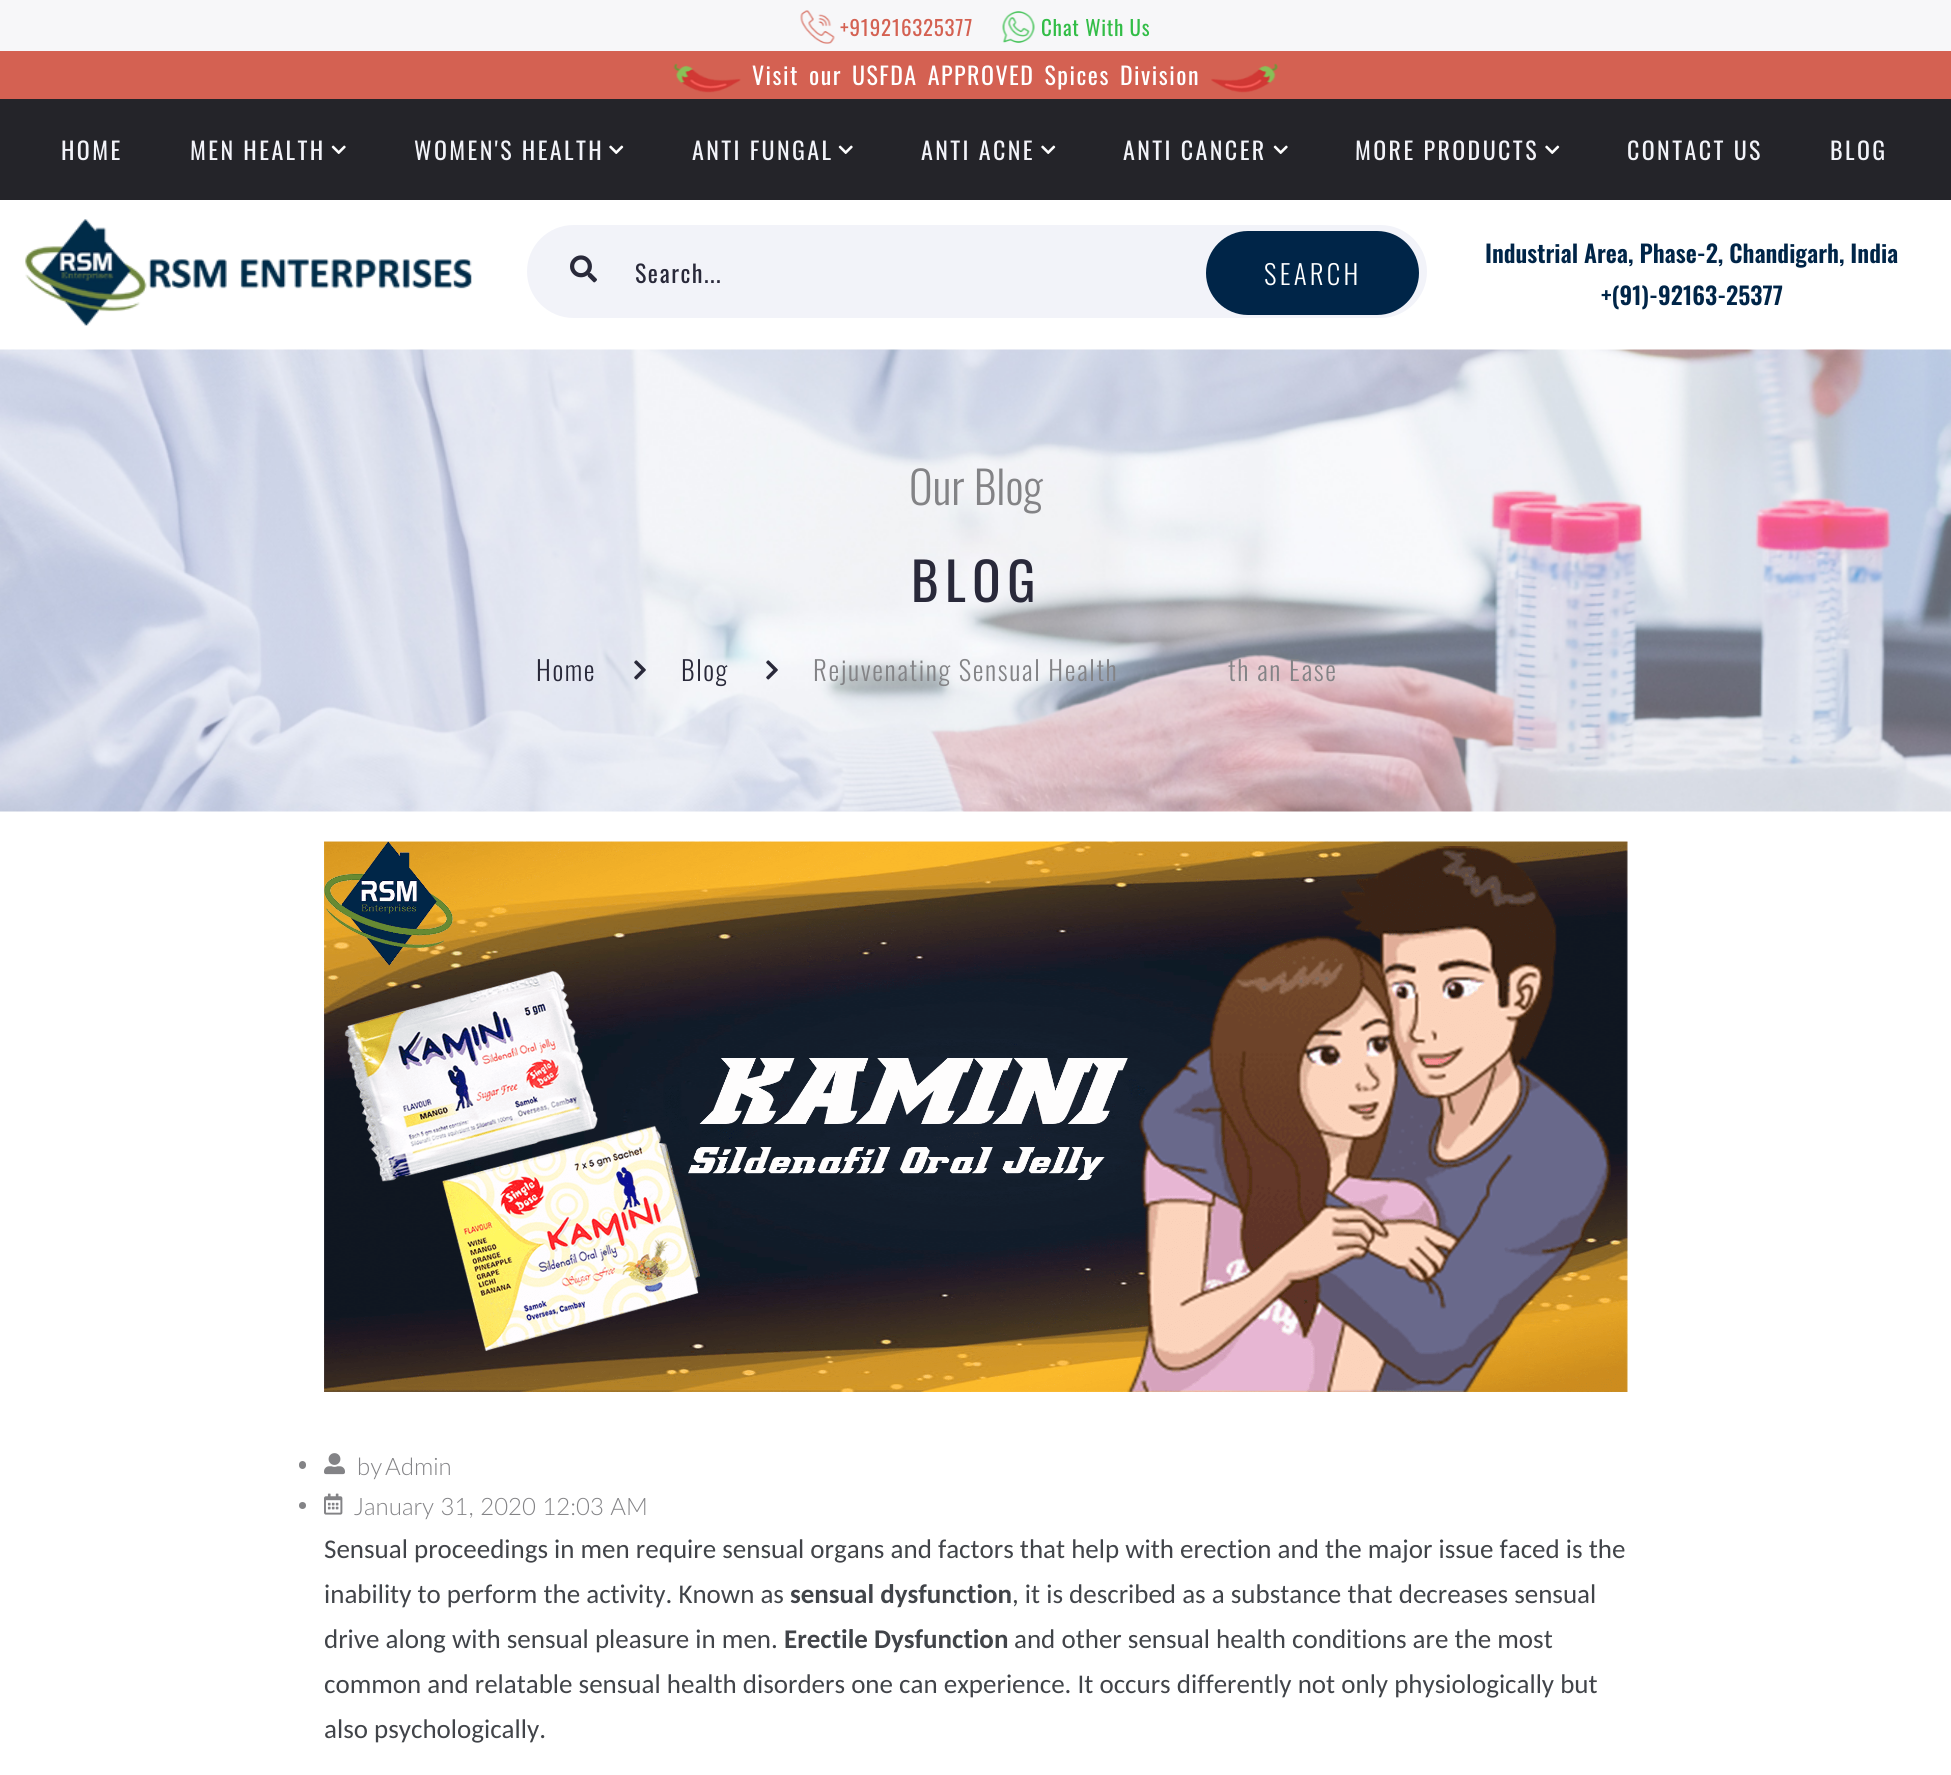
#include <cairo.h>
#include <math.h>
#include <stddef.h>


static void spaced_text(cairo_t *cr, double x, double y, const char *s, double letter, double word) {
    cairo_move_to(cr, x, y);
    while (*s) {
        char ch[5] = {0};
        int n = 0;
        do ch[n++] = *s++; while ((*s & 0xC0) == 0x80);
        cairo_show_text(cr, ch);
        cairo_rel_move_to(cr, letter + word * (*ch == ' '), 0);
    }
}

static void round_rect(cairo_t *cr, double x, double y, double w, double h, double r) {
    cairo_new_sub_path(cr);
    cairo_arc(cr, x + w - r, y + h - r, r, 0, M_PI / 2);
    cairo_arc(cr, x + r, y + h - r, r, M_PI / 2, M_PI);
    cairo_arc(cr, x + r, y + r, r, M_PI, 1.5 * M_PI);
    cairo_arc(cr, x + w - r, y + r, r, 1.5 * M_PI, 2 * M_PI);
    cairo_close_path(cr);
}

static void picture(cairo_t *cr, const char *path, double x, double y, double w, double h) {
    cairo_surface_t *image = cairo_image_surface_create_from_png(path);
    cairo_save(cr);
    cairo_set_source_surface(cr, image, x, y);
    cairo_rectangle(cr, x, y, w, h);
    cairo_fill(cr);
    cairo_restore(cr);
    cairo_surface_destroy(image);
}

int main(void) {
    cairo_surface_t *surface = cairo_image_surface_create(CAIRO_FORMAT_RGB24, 1951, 1775);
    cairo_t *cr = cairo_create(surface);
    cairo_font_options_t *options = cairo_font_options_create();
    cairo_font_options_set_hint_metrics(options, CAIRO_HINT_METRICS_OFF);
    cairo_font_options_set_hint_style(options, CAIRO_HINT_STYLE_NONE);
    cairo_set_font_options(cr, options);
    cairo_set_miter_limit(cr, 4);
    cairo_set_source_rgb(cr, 1, 1, 1);
    cairo_paint(cr);
    cairo_set_source_rgb(cr, 0.141, 0.141, 0.161);
    cairo_rectangle(cr, 0, 99, 1951, 101);
    cairo_fill(cr);
    cairo_set_source_rgb(cr, 0.965, 0.965, 0.973);
    cairo_rectangle(cr, 0, 0, 1951, 51);
    cairo_fill(cr);
    picture(cr, "img1.png", 800, 10, 35, 34);
    cairo_select_font_face(cr, "Oswald", CAIRO_FONT_SLANT_NORMAL, CAIRO_FONT_WEIGHT_NORMAL);
    cairo_set_font_size(cr, 21);
    cairo_set_source_rgb(cr, 0.831, 0.38, 0.322);
    spaced_text(cr, 840, 36, "+919216325377", 0.75, 0);
    picture(cr, "img2.png", 1002, 11, 33, 32);
    cairo_set_source_rgb(cr, 0.196, 0.741, 0.278);
    spaced_text(cr, 1041, 36, "Chat With Us", 0.75, 0);
    cairo_set_source_rgb(cr, 0.831, 0.38, 0.322);
    cairo_rectangle(cr, 0, 51, 1951, 48);
    cairo_fill(cr);
    picture(cr, "img3.png", 673, 63, 68, 30);
    cairo_set_font_size(cr, 24);
    cairo_set_source_rgb(cr, 1, 1, 1);
    spaced_text(cr, 752, 85, "Visit our USFDA APPROVED Spices Division", 1.5, 3);
    picture(cr, "img4.png", 1211, 63, 67, 30);
    cairo_set_source_rgb(cr, 0.949, 0.953, 0.976);
    spaced_text(cr, 61, 160, "HOME", 2.4, 0);
    spaced_text(cr, 190, 160, "MEN HEALTH", 2.4, 0);
    picture(cr, "img5.png", 331, 145, 15, 9);
    spaced_text(cr, 414, 160, "WOMEN'S HEALTH", 2.4, 0);
    picture(cr, "img6.png", 609, 145, 15, 9);
    spaced_text(cr, 692, 160, "ANTI FUNGAL", 2.4, 0);
    picture(cr, "img5.png", 838, 145, 15, 9);
    spaced_text(cr, 921, 160, "ANTI ACNE", 2.4, 0);
    picture(cr, "img6.png", 1041, 145, 15, 9);
    spaced_text(cr, 1123, 160, "ANTI CANCER", 2.4, 0);
    picture(cr, "img5.png", 1273, 145, 15, 9);
    spaced_text(cr, 1355, 160, "MORE PRODUCTS", 2.4, 0);
    picture(cr, "img6.png", 1545, 145, 15, 9);
    spaced_text(cr, 1627, 160, "CONTACT US", 2.4, 0);
    spaced_text(cr, 1830, 160, "BLOG", 2.4, 0);
    picture(cr, "img7.png", 25, 219, 447, 107);
    round_rect(cr, 527, 225, 900, 93, 46.5);
    cairo_fill(cr);
    picture(cr, "img8.png", 570, 255, 27, 28);
    cairo_set_source_rgb(cr, 0.161, 0.161, 0.227);
    spaced_text(cr, 635, 283, "Search...", 1.5, 0);
    cairo_set_source_rgb(cr, 0, 0.145, 0.282);
    round_rect(cr, 1206, 231, 213, 84, 42);
    cairo_fill(cr);
    cairo_select_font_face(cr, "Oswald Light", CAIRO_FONT_SLANT_NORMAL, CAIRO_FONT_WEIGHT_NORMAL);
    cairo_set_font_size(cr, 27);
    cairo_set_source_rgb(cr, 1, 1, 1);
    spaced_text(cr, 1264, 285, "SEARCH", 3.25, 0);
    cairo_select_font_face(cr, "Oswald SemiBold", CAIRO_FONT_SLANT_NORMAL, CAIRO_FONT_WEIGHT_NORMAL);
    cairo_set_font_size(cr, 24);
    cairo_set_source_rgb(cr, 0, 0.145, 0.282);
    cairo_move_to(cr, 1485, 263);
    cairo_show_text(cr, "Industrial Area, Phase-2, Chandigarh, India");
    cairo_move_to(cr, 1601, 305);
    cairo_show_text(cr, "+(91)-92163-25377");
    picture(cr, "img9.png", 0, 349, 1951, 463);
    cairo_select_font_face(cr, "Oswald Light", CAIRO_FONT_SLANT_NORMAL, CAIRO_FONT_WEIGHT_NORMAL);
    cairo_set_font_size(cr, 45);
    cairo_set_source_rgb(cr, 0.514, 0.514, 0.525);
    cairo_move_to(cr, 909, 505);
    cairo_show_text(cr, "Our Blog");
    cairo_select_font_face(cr, "Oswald", CAIRO_FONT_SLANT_NORMAL, CAIRO_FONT_WEIGHT_NORMAL);
    cairo_set_font_size(cr, 52.5);
    cairo_set_source_rgb(cr, 0.161, 0.161, 0.227);
    spaced_text(cr, 911, 602, "BLOG", 6.5, 0);
    cairo_select_font_face(cr, "Oswald Light", CAIRO_FONT_SLANT_NORMAL, CAIRO_FONT_WEIGHT_NORMAL);
    cairo_set_font_size(cr, 27);
    spaced_text(cr, 536, 681, "Home", 1.6, 0);
    picture(cr, "img10.png", 634, 660, 12, 20);
    spaced_text(cr, 681, 681, "Blog", 1.6, 0);
    picture(cr, "img11.png", 766, 660, 12, 20);
    cairo_set_source_rgb(cr, 0.514, 0.514, 0.525);
    spaced_text(cr, 813, 681, "Rejuvenating Sensual Health", 1.6, 0);
    spaced_text(cr, 1228, 681, "th an Ease", 1.6, 0);
    picture(cr, "img12.png", 324, 841, 1304, 551);
    round_rect(cr, 299, 1461, 7, 8, 3.5);
    cairo_fill(cr);
    picture(cr, "img13.png", 324, 1453, 21, 22);
    cairo_select_font_face(cr, "Lato Light", CAIRO_FONT_SLANT_NORMAL, CAIRO_FONT_WEIGHT_NORMAL);
    cairo_set_font_size(cr, 24);
    cairo_move_to(cr, 357, 1475);
    cairo_show_text(cr, "by");
    cairo_move_to(cr, 385, 1475);
    cairo_show_text(cr, "Admin");
    cairo_new_path(cr);
    cairo_arc(cr, 302.5, 1505.5, 3.5, 0, 2 * M_PI);
    cairo_fill(cr);
    picture(cr, "img14.png", 324, 1493, 19, 22);
    cairo_move_to(cr, 354, 1515);
    cairo_show_text(cr, "January 31, 2020 12:03 AM");
    cairo_select_font_face(cr, "Carlito", CAIRO_FONT_SLANT_NORMAL, CAIRO_FONT_WEIGHT_NORMAL);
    cairo_set_font_size(cr, 27);
    cairo_set_source_rgb(cr, 0.255, 0.267, 0.286);
    cairo_move_to(cr, 324, 1558);
    cairo_show_text(cr, "Sensual proceedings in men require sensual organs and factors that help with erection and the major issue faced is the");
    cairo_move_to(cr, 324, 1603);
    cairo_show_text(cr, "inability to perform the activity. Known as");
    cairo_select_font_face(cr, "Carlito", CAIRO_FONT_SLANT_NORMAL, CAIRO_FONT_WEIGHT_BOLD);
    cairo_move_to(cr, 790, 1603);
    cairo_show_text(cr, "sensual dysfunction");
    cairo_select_font_face(cr, "Carlito", CAIRO_FONT_SLANT_NORMAL, CAIRO_FONT_WEIGHT_NORMAL);
    cairo_move_to(cr, 1012, 1603);
    cairo_show_text(cr, ", it is described as a substance that decreases sensual");
    cairo_move_to(cr, 324, 1648);
    cairo_show_text(cr, "drive along with sensual pleasure in men.");
    cairo_select_font_face(cr, "Carlito", CAIRO_FONT_SLANT_NORMAL, CAIRO_FONT_WEIGHT_BOLD);
    cairo_move_to(cr, 784, 1648);
    cairo_show_text(cr, "Erectile Dysfunction");
    cairo_select_font_face(cr, "Carlito", CAIRO_FONT_SLANT_NORMAL, CAIRO_FONT_WEIGHT_NORMAL);
    cairo_move_to(cr, 1014, 1648);
    cairo_show_text(cr, "and other sensual health conditions are the most");
    cairo_move_to(cr, 324, 1693);
    cairo_show_text(cr, "common and relatable sensual health disorders one can experience. It occurs differently not only physiologically but");
    cairo_move_to(cr, 324, 1738);
    cairo_show_text(cr, "also psychologically.");
    cairo_surface_write_to_png(surface, "page.png");
    cairo_font_options_destroy(options);
    cairo_destroy(cr);
    cairo_surface_destroy(surface);
    return 0;
}
